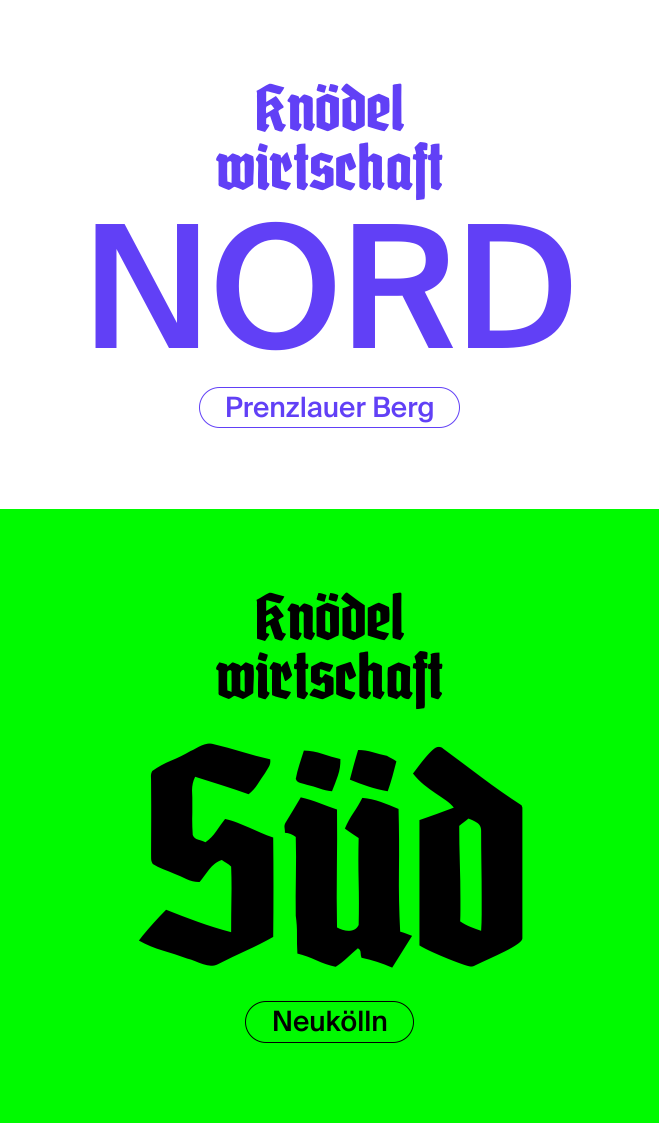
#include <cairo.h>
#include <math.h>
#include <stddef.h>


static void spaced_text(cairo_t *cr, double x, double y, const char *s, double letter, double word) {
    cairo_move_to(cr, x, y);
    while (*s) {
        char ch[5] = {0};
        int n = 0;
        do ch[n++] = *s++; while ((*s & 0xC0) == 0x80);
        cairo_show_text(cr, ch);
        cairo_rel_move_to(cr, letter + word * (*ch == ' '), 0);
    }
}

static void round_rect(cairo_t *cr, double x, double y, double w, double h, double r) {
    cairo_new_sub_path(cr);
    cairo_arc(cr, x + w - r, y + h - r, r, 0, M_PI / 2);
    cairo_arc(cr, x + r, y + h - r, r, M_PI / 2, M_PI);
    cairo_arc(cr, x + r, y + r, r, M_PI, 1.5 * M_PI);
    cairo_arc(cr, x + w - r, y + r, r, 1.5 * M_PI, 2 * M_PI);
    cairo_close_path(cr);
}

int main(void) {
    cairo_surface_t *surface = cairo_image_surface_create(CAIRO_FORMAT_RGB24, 659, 1123);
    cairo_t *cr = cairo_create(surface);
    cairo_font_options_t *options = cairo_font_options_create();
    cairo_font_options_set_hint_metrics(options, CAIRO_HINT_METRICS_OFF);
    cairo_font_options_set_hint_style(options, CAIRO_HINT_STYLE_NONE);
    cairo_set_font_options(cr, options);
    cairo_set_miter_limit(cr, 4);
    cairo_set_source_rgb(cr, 1, 1, 1);
    cairo_paint(cr);
    cairo_select_font_face(cr, "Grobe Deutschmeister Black", CAIRO_FONT_SLANT_NORMAL, CAIRO_FONT_WEIGHT_NORMAL);
    cairo_set_font_size(cr, 60);
    cairo_set_source_rgb(cr, 0.38, 0.251, 0.961);
    cairo_move_to(cr, 255, 131);
    cairo_show_text(cr, "Knödel");
    cairo_move_to(cr, 216, 190);
    cairo_show_text(cr, "wirtschaft");
    cairo_select_font_face(cr, "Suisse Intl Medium", CAIRO_FONT_SLANT_NORMAL, CAIRO_FONT_WEIGHT_NORMAL);
    cairo_set_font_size(cr, 171);
    spaced_text(cr, 83, 348, "NORD", -1.5, 0);
    round_rect(cr, 199.5, 387.5, 260, 40, 20);
    cairo_set_line_width(cr, 1);
    cairo_stroke(cr);
    cairo_set_font_size(cr, 28);
    cairo_move_to(cr, 225, 417);
    cairo_show_text(cr, "Prenzlauer Berg");
    cairo_set_source_rgb(cr, 0, 0.98, 0);
    cairo_rectangle(cr, 0, 509, 659, 614);
    cairo_fill(cr);
    cairo_select_font_face(cr, "Grobe Deutschmeister Black", CAIRO_FONT_SLANT_NORMAL, CAIRO_FONT_WEIGHT_NORMAL);
    cairo_set_font_size(cr, 60);
    cairo_set_source_rgb(cr, 0, 0, 0);
    cairo_move_to(cr, 255, 640);
    cairo_show_text(cr, "Knödel");
    cairo_move_to(cr, 216, 699);
    cairo_show_text(cr, "wirtschaft");
    cairo_set_font_size(cr, 277);
    spaced_text(cr, 132, 966, "Süd", -3, 0);
    round_rect(cr, 245.5, 1001.5, 168, 41, 20.5);
    cairo_stroke(cr);
    cairo_select_font_face(cr, "Suisse Intl Medium", CAIRO_FONT_SLANT_NORMAL, CAIRO_FONT_WEIGHT_NORMAL);
    cairo_set_font_size(cr, 28);
    cairo_move_to(cr, 272, 1031);
    cairo_show_text(cr, "Neukölln");
    cairo_surface_write_to_png(surface, "page.png");
    cairo_font_options_destroy(options);
    cairo_destroy(cr);
    cairo_surface_destroy(surface);
    return 0;
}
